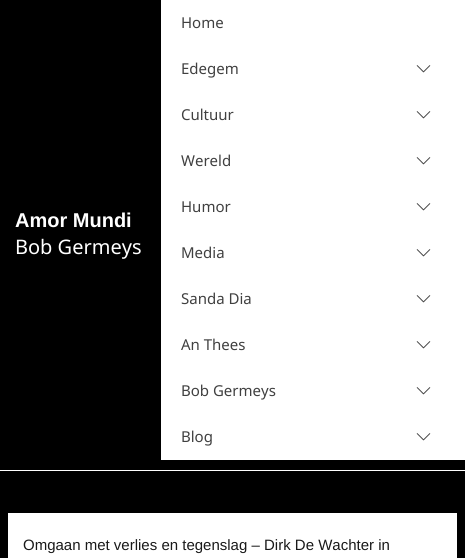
#include <cairo.h>
#include <math.h>
#include <stddef.h>


static void picture(cairo_t *cr, const char *path, double x, double y, double w, double h) {
    cairo_surface_t *image = cairo_image_surface_create_from_png(path);
    cairo_save(cr);
    cairo_set_source_surface(cr, image, x, y);
    cairo_rectangle(cr, x, y, w, h);
    cairo_fill(cr);
    cairo_restore(cr);
    cairo_surface_destroy(image);
}

int main(void) {
    cairo_surface_t *surface = cairo_image_surface_create(CAIRO_FORMAT_RGB24, 465, 558);
    cairo_t *cr = cairo_create(surface);
    cairo_font_options_t *options = cairo_font_options_create();
    cairo_font_options_set_hint_metrics(options, CAIRO_HINT_METRICS_OFF);
    cairo_font_options_set_hint_style(options, CAIRO_HINT_STYLE_NONE);
    cairo_set_font_options(cr, options);
    cairo_set_miter_limit(cr, 4);
    cairo_set_source_rgb(cr, 0, 0, 0);
    cairo_paint(cr);
    cairo_set_source_rgb(cr, 1, 1, 1);
    cairo_rectangle(cr, 0, 470, 465, 1);
    cairo_fill(cr);
    cairo_select_font_face(cr, "Liberation Sans", CAIRO_FONT_SLANT_NORMAL, CAIRO_FONT_WEIGHT_BOLD);
    cairo_set_font_size(cr, 20);
    cairo_move_to(cr, 15, 227);
    cairo_show_text(cr, "Amor Mundi");
    cairo_select_font_face(cr, "Noto Sans", CAIRO_FONT_SLANT_NORMAL, CAIRO_FONT_WEIGHT_NORMAL);
    cairo_move_to(cr, 15, 254);
    cairo_show_text(cr, "Bob Germeys");
    cairo_rectangle(cr, 161, 0, 304, 460);
    cairo_fill(cr);
    cairo_set_font_size(cr, 15);
    cairo_set_source_rgb(cr, 0.251, 0.251, 0.251);
    cairo_move_to(cr, 181, 28);
    cairo_show_text(cr, "Home");
    cairo_move_to(cr, 181, 74);
    cairo_show_text(cr, "Edegem");
    picture(cr, "img1.png", 416, 65, 15, 8);
    cairo_move_to(cr, 181, 120);
    cairo_show_text(cr, "Cultuur");
    picture(cr, "img1.png", 416, 111, 15, 8);
    cairo_move_to(cr, 181, 166);
    cairo_show_text(cr, "Wereld");
    picture(cr, "img1.png", 416, 157, 15, 8);
    cairo_move_to(cr, 181, 212);
    cairo_show_text(cr, "Humor");
    picture(cr, "img1.png", 416, 203, 15, 8);
    cairo_move_to(cr, 181, 258);
    cairo_show_text(cr, "Media");
    picture(cr, "img1.png", 416, 249, 15, 8);
    cairo_move_to(cr, 181, 304);
    cairo_show_text(cr, "Sanda Dia");
    picture(cr, "img1.png", 416, 295, 15, 8);
    cairo_move_to(cr, 181, 350);
    cairo_show_text(cr, "An Thees");
    picture(cr, "img1.png", 416, 341, 15, 8);
    cairo_move_to(cr, 181, 396);
    cairo_show_text(cr, "Bob Germeys");
    picture(cr, "img1.png", 416, 387, 15, 8);
    cairo_move_to(cr, 181, 442);
    cairo_show_text(cr, "Blog");
    picture(cr, "img1.png", 416, 433, 15, 8);
    cairo_set_source_rgb(cr, 1, 1, 1);
    cairo_rectangle(cr, 8, 513, 449, 45);
    cairo_fill(cr);
    cairo_select_font_face(cr, "Liberation Sans", CAIRO_FONT_SLANT_NORMAL, CAIRO_FONT_WEIGHT_NORMAL);
    cairo_set_source_rgb(cr, 0.098, 0.098, 0.098);
    cairo_move_to(cr, 23, 550);
    cairo_show_text(cr, "Omgaan met verlies en tegenslag – Dirk De Wachter in");
    cairo_surface_write_to_png(surface, "page.png");
    cairo_font_options_destroy(options);
    cairo_destroy(cr);
    cairo_surface_destroy(surface);
    return 0;
}
